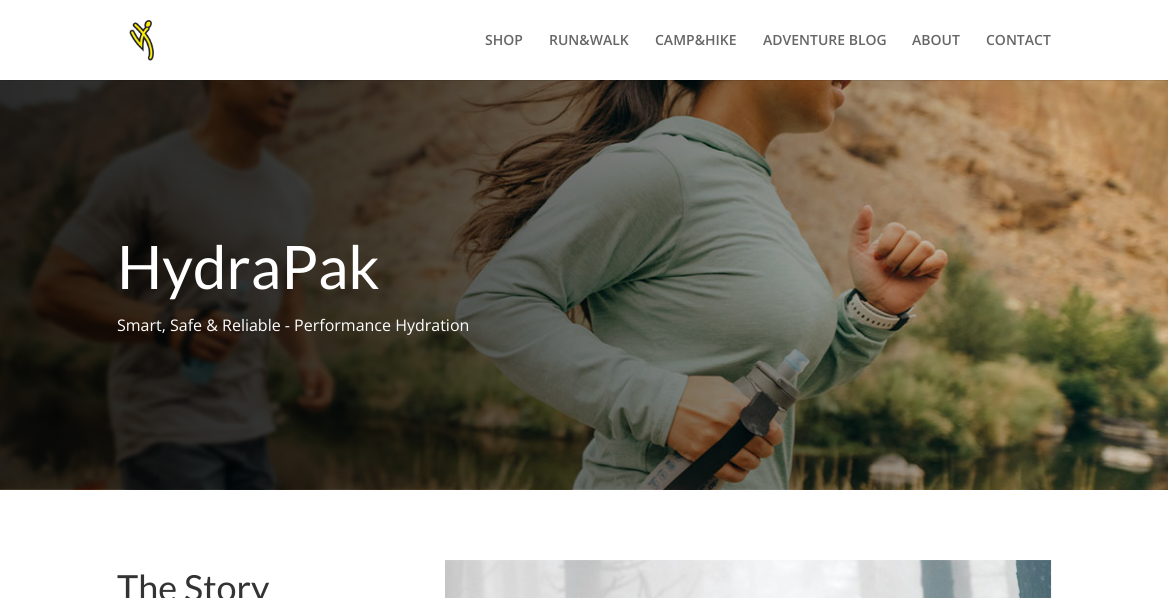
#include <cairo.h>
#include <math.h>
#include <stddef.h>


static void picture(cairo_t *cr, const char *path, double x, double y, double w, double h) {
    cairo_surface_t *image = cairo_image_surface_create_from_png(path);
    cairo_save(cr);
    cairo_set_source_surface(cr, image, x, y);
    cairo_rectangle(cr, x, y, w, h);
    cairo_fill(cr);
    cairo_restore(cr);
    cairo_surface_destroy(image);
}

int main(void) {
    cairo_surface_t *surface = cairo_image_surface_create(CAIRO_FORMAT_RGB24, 1168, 598);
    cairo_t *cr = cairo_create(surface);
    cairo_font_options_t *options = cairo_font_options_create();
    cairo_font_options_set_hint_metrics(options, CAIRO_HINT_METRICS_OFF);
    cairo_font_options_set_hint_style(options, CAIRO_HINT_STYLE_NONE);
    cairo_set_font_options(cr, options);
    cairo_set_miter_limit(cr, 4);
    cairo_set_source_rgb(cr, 1, 1, 1);
    cairo_paint(cr);
    picture(cr, "img2.png", 0, 80, 1168, 410);
    cairo_set_source_rgba(cr, 0, 0, 0, 0.1);
    cairo_rectangle(cr, 0, 80, 1168, 1);
    cairo_fill(cr);
    picture(cr, "img1.png", 129, 20, 25, 41);
    cairo_select_font_face(cr, "Open Sans SemiBold", CAIRO_FONT_SLANT_NORMAL, CAIRO_FONT_WEIGHT_NORMAL);
    cairo_set_font_size(cr, 14);
    cairo_set_source_rgb(cr, 0.4, 0.4, 0.4);
    cairo_move_to(cr, 485, 45);
    cairo_show_text(cr, "SHOP");
    cairo_move_to(cr, 549, 45);
    cairo_show_text(cr, "RUN&WALK");
    cairo_move_to(cr, 655, 45);
    cairo_show_text(cr, "CAMP&HIKE");
    cairo_move_to(cr, 763, 45);
    cairo_show_text(cr, "ADVENTURE BLOG");
    cairo_move_to(cr, 912, 45);
    cairo_show_text(cr, "ABOUT");
    cairo_move_to(cr, 986, 45);
    cairo_show_text(cr, "CONTACT");
    cairo_select_font_face(cr, "Lato", CAIRO_FONT_SLANT_NORMAL, CAIRO_FONT_WEIGHT_NORMAL);
    cairo_set_font_size(cr, 60);
    cairo_set_source_rgb(cr, 1, 1, 1);
    cairo_move_to(cr, 117, 289);
    cairo_show_text(cr, "HydraPak");
    cairo_select_font_face(cr, "Open Sans", CAIRO_FONT_SLANT_NORMAL, CAIRO_FONT_WEIGHT_NORMAL);
    cairo_set_font_size(cr, 16);
    cairo_move_to(cr, 117, 331);
    cairo_show_text(cr, "Smart, Safe & Reliable - Performance Hydration");
    cairo_select_font_face(cr, "Lato", CAIRO_FONT_SLANT_NORMAL, CAIRO_FONT_WEIGHT_NORMAL);
    cairo_set_font_size(cr, 36);
    cairo_set_source_rgb(cr, 0.2, 0.2, 0.2);
    cairo_move_to(cr, 117, 601);
    cairo_show_text(cr, "The Story");
    picture(cr, "img3.png", 445, 560, 607, 38);
    cairo_surface_write_to_png(surface, "page.png");
    cairo_font_options_destroy(options);
    cairo_destroy(cr);
    cairo_surface_destroy(surface);
    return 0;
}
